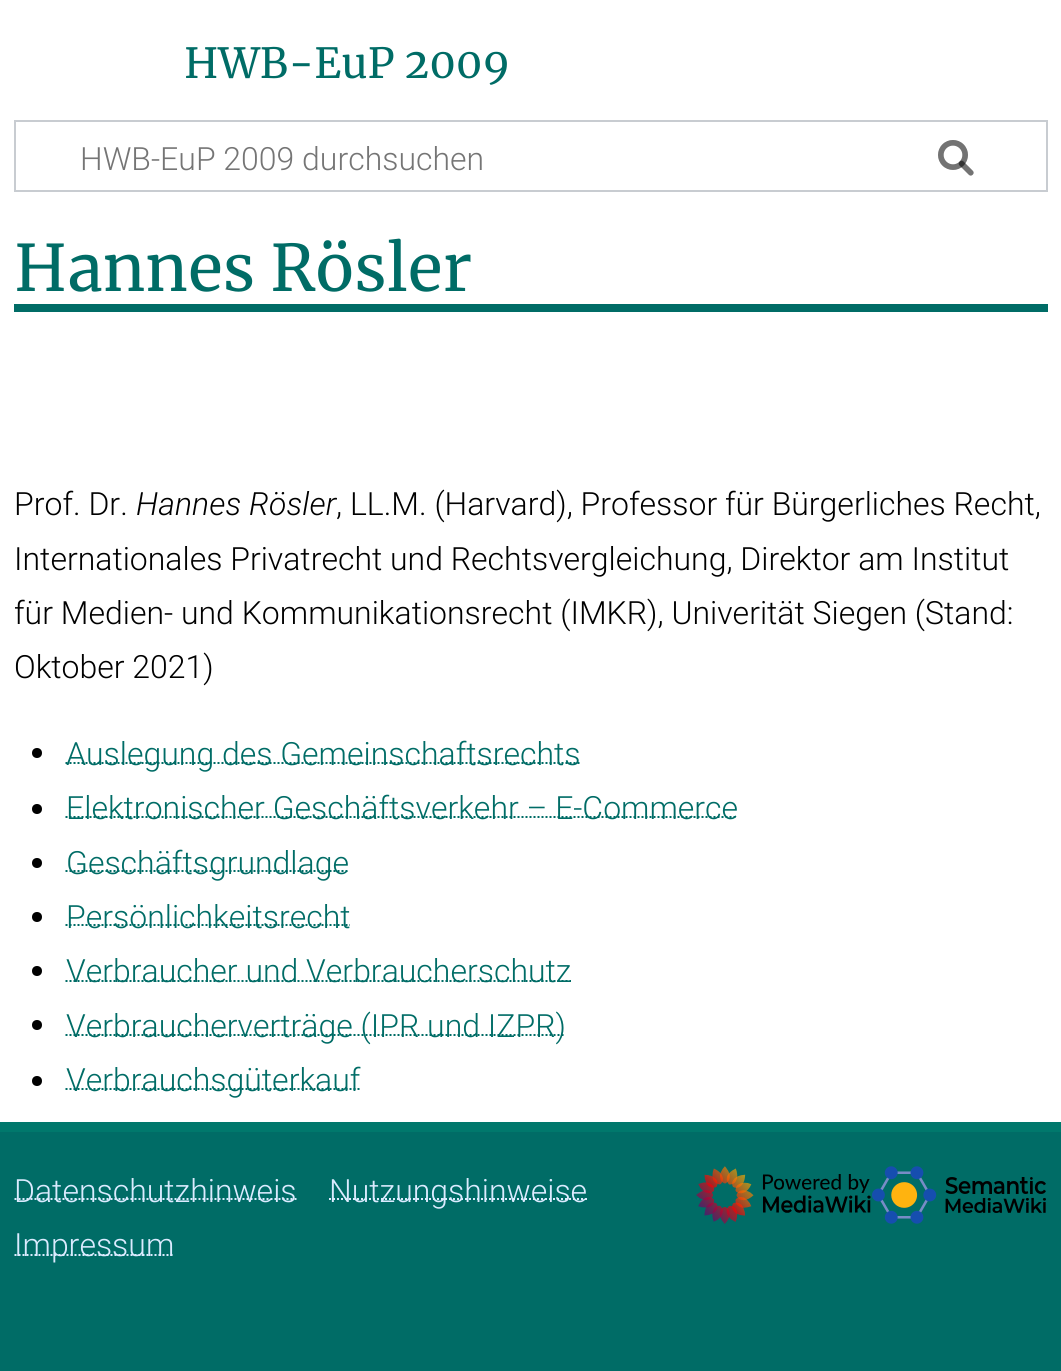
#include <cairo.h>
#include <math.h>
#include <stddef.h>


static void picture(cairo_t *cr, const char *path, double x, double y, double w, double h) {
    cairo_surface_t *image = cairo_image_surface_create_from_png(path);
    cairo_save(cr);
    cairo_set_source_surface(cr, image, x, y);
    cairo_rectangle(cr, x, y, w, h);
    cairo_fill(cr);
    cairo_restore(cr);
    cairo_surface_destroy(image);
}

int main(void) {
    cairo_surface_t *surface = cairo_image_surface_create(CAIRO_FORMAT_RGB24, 1061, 1371);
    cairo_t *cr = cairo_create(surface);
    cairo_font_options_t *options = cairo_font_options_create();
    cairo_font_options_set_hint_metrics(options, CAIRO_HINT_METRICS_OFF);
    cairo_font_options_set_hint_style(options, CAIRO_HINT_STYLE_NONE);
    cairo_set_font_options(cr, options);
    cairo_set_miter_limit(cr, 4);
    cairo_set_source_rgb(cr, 0, 0.424, 0.4);
    cairo_paint(cr);
    cairo_set_source_rgb(cr, 1, 1, 1);
    cairo_rectangle(cr, 0, 0, 1061, 1122);
    cairo_fill(cr);
    cairo_select_font_face(cr, "Merriweather", CAIRO_FONT_SLANT_NORMAL, CAIRO_FONT_WEIGHT_NORMAL);
    cairo_set_font_size(cr, 41.5);
    cairo_set_source_rgb(cr, 0, 0.424, 0.4);
    cairo_move_to(cr, 184, 78);
    cairo_show_text(cr, "HWB-EuP 2009");
    cairo_rectangle(cr, 15, 121, 1032, 70);
    cairo_set_source_rgb(cr, 0.784, 0.8, 0.82);
    cairo_stroke(cr);
    picture(cr, "img1.png", 938, 140, 36, 36);
    cairo_select_font_face(cr, "Roboto Light", CAIRO_FONT_SLANT_NORMAL, CAIRO_FONT_WEIGHT_NORMAL);
    cairo_set_font_size(cr, 32);
    cairo_set_source_rgb(cr, 0.459, 0.459, 0.459);
    cairo_move_to(cr, 80, 170);
    cairo_show_text(cr, "HWB-EuP 2009 durchsuchen");
    picture(cr, "img2.png", 938, 140, 36, 36);
    cairo_set_source_rgb(cr, 0, 0.471, 0.424);
    cairo_rectangle(cr, 0, 1122, 1061, 10);
    cairo_fill(cr);
    cairo_set_source_rgb(cr, 0, 0.424, 0.4);
    cairo_rectangle(cr, 14, 304, 1034, 8);
    cairo_fill(cr);
    cairo_select_font_face(cr, "Merriweather", CAIRO_FONT_SLANT_NORMAL, CAIRO_FONT_WEIGHT_NORMAL);
    cairo_set_font_size(cr, 64);
    cairo_move_to(cr, 14, 291);
    cairo_show_text(cr, "Hannes Rösler");
    cairo_select_font_face(cr, "Roboto Light", CAIRO_FONT_SLANT_NORMAL, CAIRO_FONT_WEIGHT_NORMAL);
    cairo_set_font_size(cr, 32);
    cairo_set_source_rgb(cr, 0, 0, 0);
    cairo_move_to(cr, 14, 515);
    cairo_show_text(cr, "Prof. Dr.");
    cairo_select_font_face(cr, "Roboto Light", CAIRO_FONT_SLANT_ITALIC, CAIRO_FONT_WEIGHT_NORMAL);
    cairo_move_to(cr, 136, 515);
    cairo_show_text(cr, "Hannes Rösler");
    cairo_select_font_face(cr, "Roboto Light", CAIRO_FONT_SLANT_NORMAL, CAIRO_FONT_WEIGHT_NORMAL);
    cairo_move_to(cr, 336, 515);
    cairo_show_text(cr, ", LL.M. (Harvard), Professor für Bürgerliches Recht,");
    cairo_move_to(cr, 14, 570);
    cairo_show_text(cr, "Internationales Privatrecht und Rechtsvergleichung, Direktor am Institut");
    cairo_move_to(cr, 14, 624);
    cairo_show_text(cr, "für Medien- und Kommunikationsrecht (IMKR), Univerität Siegen (Stand:");
    cairo_move_to(cr, 14, 678);
    cairo_show_text(cr, "Oktober 2021)");
    cairo_new_path(cr);
    cairo_arc(cr, 37, 753, 5, 0, 2 * M_PI);
    cairo_fill(cr);
    cairo_new_path(cr);
    cairo_move_to(cr, 65.5, 763);
    cairo_line_to(cr, 580, 763);
    cairo_set_source_rgb(cr, 0, 0.424, 0.4);
    cairo_set_dash(cr, (double[]){2, 2}, 2, 0);
    cairo_stroke(cr);
    cairo_move_to(cr, 66, 765);
    cairo_show_text(cr, "Auslegung des Gemeinschaftsrechts");
    cairo_set_source_rgb(cr, 0, 0, 0);
    cairo_new_path(cr);
    cairo_arc(cr, 37, 809, 5, 0, 2 * M_PI);
    cairo_fill(cr);
    cairo_new_path(cr);
    cairo_move_to(cr, 65.5, 817);
    cairo_line_to(cr, 737.5, 817);
    cairo_set_source_rgb(cr, 0, 0.424, 0.4);
    cairo_stroke(cr);
    cairo_move_to(cr, 66, 819);
    cairo_show_text(cr, "Elektronischer Geschäftsverkehr – E‑Commerce");
    cairo_set_source_rgb(cr, 0, 0, 0);
    cairo_new_path(cr);
    cairo_arc(cr, 37, 863, 5, 0, 2 * M_PI);
    cairo_fill(cr);
    cairo_new_path(cr);
    cairo_move_to(cr, 65.5, 871);
    cairo_line_to(cr, 348.5, 871);
    cairo_set_source_rgb(cr, 0, 0.424, 0.4);
    cairo_stroke(cr);
    cairo_move_to(cr, 66, 874);
    cairo_show_text(cr, "Geschäftsgrundlage");
    cairo_set_source_rgb(cr, 0, 0, 0);
    cairo_new_path(cr);
    cairo_arc(cr, 37, 917, 5, 0, 2 * M_PI);
    cairo_fill(cr);
    cairo_new_path(cr);
    cairo_move_to(cr, 65.5, 925);
    cairo_line_to(cr, 350, 925);
    cairo_set_source_rgb(cr, 0, 0.424, 0.4);
    cairo_stroke(cr);
    cairo_move_to(cr, 66, 928);
    cairo_show_text(cr, "Persönlichkeitsrecht");
    cairo_set_source_rgb(cr, 0, 0, 0);
    cairo_new_path(cr);
    cairo_arc(cr, 37, 971, 5, 0, 2 * M_PI);
    cairo_fill(cr);
    cairo_new_path(cr);
    cairo_move_to(cr, 65.5, 981);
    cairo_line_to(cr, 571, 981);
    cairo_set_source_rgb(cr, 0, 0.424, 0.4);
    cairo_stroke(cr);
    cairo_move_to(cr, 66, 982);
    cairo_show_text(cr, "Verbraucher und Verbraucherschutz");
    cairo_set_source_rgb(cr, 0, 0, 0);
    cairo_new_path(cr);
    cairo_arc(cr, 37, 1025, 5, 0, 2 * M_PI);
    cairo_fill(cr);
    cairo_new_path(cr);
    cairo_move_to(cr, 65.5, 1035);
    cairo_line_to(cr, 565.5, 1035);
    cairo_set_source_rgb(cr, 0, 0.424, 0.4);
    cairo_stroke(cr);
    cairo_move_to(cr, 66, 1037);
    cairo_show_text(cr, "Verbraucherverträge (IPR und IZPR)");
    cairo_set_source_rgb(cr, 0, 0, 0);
    cairo_new_path(cr);
    cairo_arc(cr, 37, 1081, 5, 0, 2 * M_PI);
    cairo_fill(cr);
    cairo_new_path(cr);
    cairo_move_to(cr, 65.5, 1089);
    cairo_line_to(cr, 360, 1089);
    cairo_set_source_rgb(cr, 0, 0.424, 0.4);
    cairo_stroke(cr);
    cairo_move_to(cr, 66, 1091);
    cairo_show_text(cr, "Verbrauchsgüterkauf");
    cairo_new_path(cr);
    cairo_move_to(cr, 14.5, 1199);
    cairo_line_to(cr, 297, 1199);
    cairo_set_source_rgb(cr, 0.859, 0.918, 1);
    cairo_stroke(cr);
    cairo_move_to(cr, 14, 1202);
    cairo_show_text(cr, "Datenschutzhinweis");
    cairo_new_path(cr);
    cairo_move_to(cr, 329, 1199);
    cairo_line_to(cr, 587, 1199);
    cairo_stroke(cr);
    cairo_move_to(cr, 329, 1202);
    cairo_show_text(cr, "Nutzungshinweise");
    cairo_new_path(cr);
    cairo_move_to(cr, 14.5, 1255);
    cairo_line_to(cr, 174.5, 1255);
    cairo_stroke(cr);
    cairo_move_to(cr, 14, 1256);
    cairo_show_text(cr, "Impressum");
    picture(cr, "img3.png", 696, 1166, 175, 58);
    picture(cr, "img4.png", 872, 1166, 174, 58);
    cairo_surface_write_to_png(surface, "page.png");
    cairo_font_options_destroy(options);
    cairo_destroy(cr);
    cairo_surface_destroy(surface);
    return 0;
}
